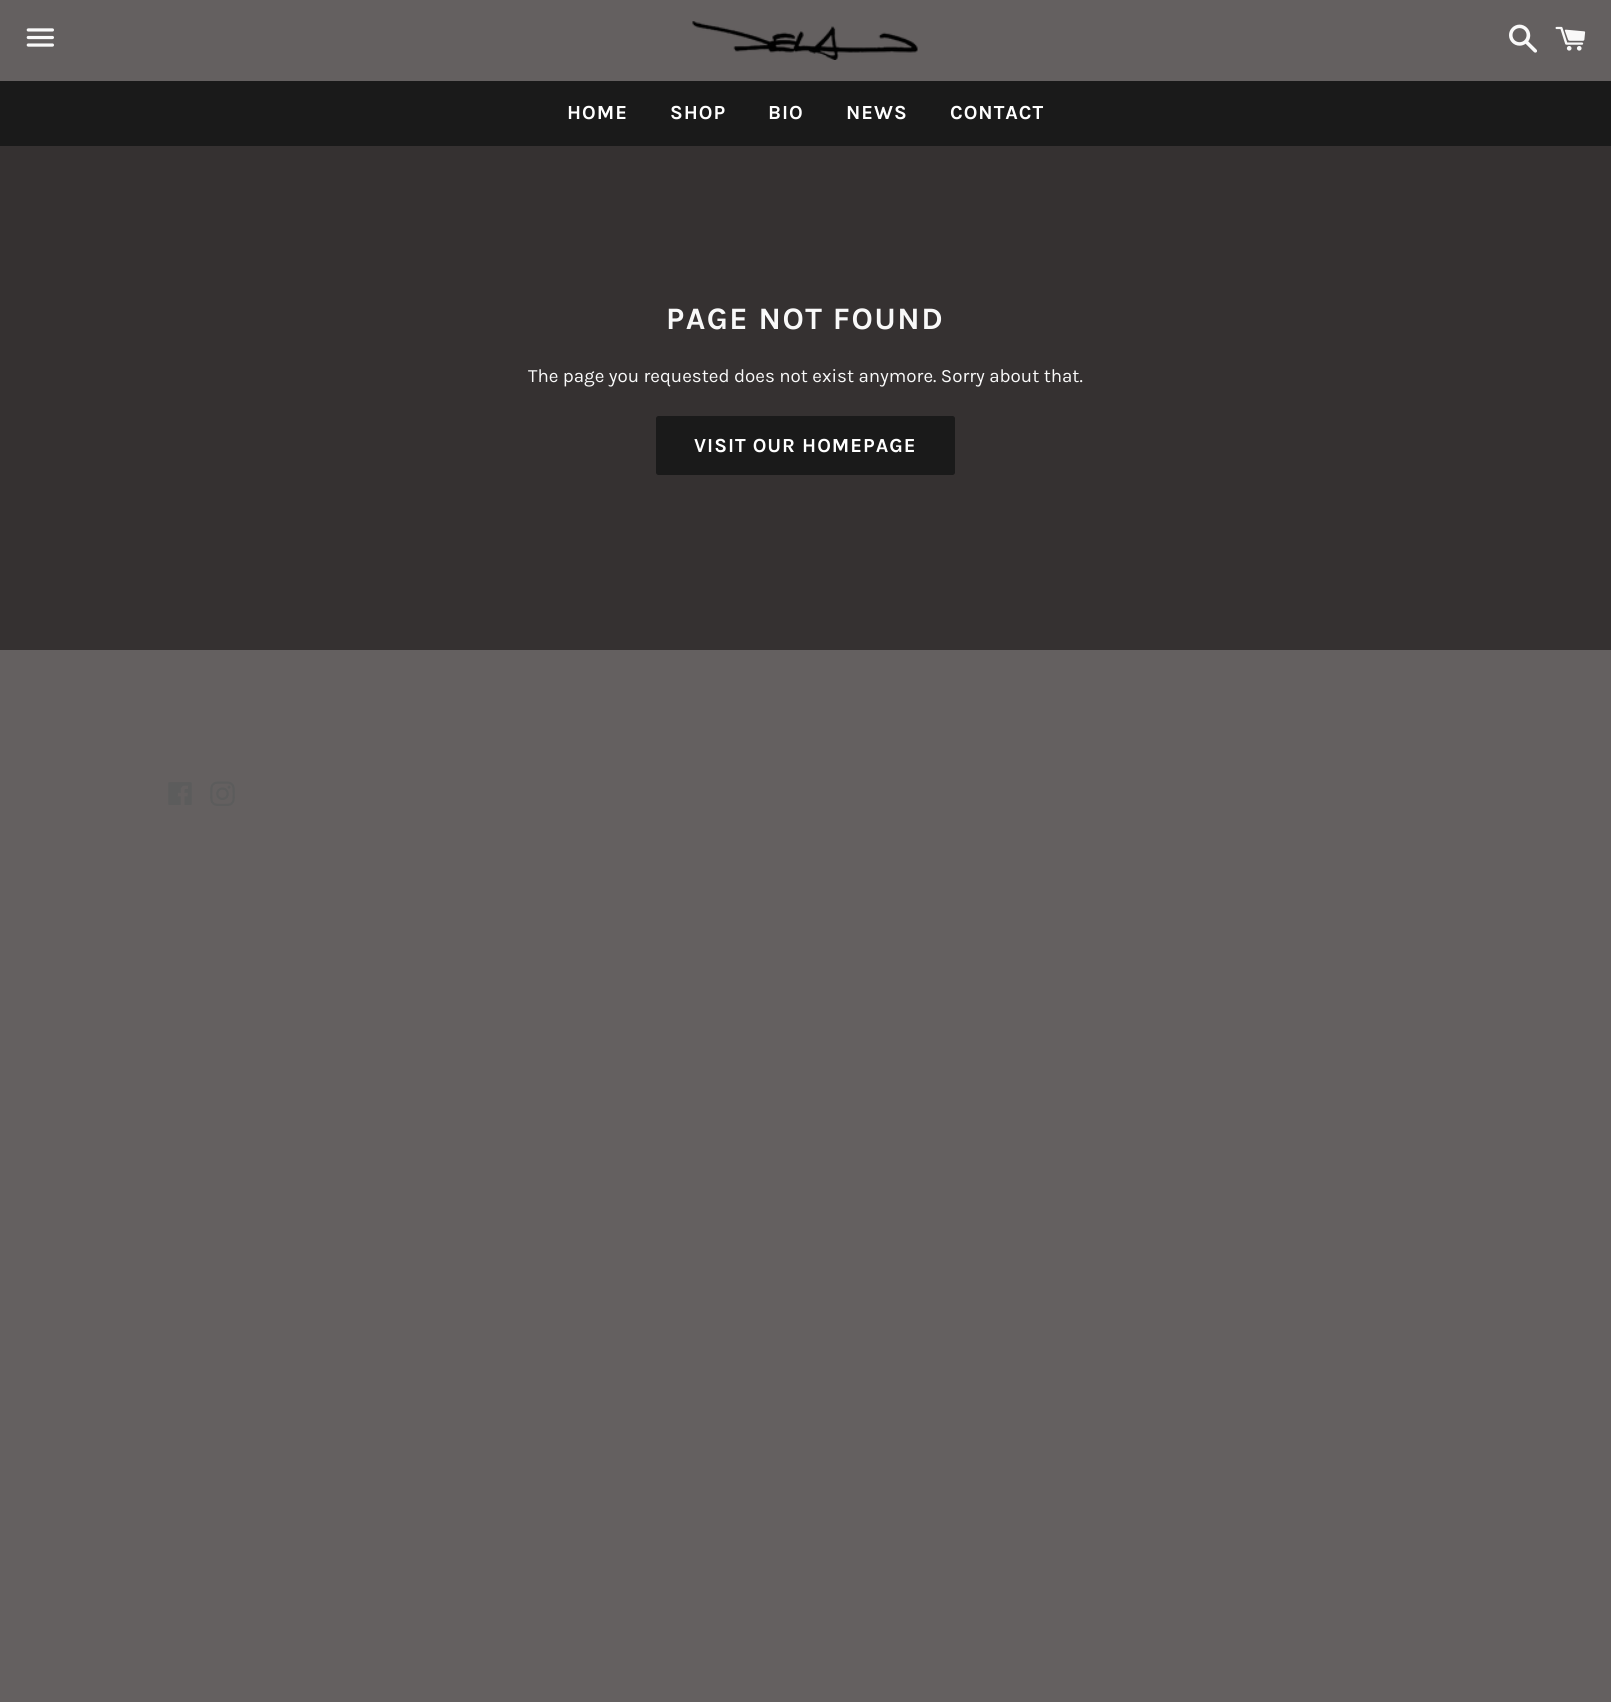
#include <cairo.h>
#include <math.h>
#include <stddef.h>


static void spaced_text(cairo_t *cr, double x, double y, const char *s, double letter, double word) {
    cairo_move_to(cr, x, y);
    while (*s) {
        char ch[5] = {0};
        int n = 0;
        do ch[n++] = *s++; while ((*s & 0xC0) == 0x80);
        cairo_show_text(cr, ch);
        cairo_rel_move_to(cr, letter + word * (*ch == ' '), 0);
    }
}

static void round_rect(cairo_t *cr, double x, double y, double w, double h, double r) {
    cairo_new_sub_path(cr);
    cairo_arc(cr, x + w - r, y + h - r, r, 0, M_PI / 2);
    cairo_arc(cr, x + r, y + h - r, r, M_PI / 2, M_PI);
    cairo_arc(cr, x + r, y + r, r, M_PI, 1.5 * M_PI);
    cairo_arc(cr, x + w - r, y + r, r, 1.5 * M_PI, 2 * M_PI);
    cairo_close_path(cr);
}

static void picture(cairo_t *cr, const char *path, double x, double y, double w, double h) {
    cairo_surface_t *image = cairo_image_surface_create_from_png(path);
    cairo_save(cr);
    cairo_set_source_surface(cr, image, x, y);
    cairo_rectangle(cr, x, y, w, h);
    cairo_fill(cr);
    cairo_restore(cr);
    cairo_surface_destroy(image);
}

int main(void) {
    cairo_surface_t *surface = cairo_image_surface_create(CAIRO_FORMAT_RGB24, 1611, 1702);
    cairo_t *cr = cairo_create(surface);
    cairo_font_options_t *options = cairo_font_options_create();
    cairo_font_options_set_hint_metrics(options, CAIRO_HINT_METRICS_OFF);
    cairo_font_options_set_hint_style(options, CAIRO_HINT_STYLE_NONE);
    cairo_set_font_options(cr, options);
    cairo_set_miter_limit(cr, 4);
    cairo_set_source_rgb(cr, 0.392, 0.376, 0.376);
    cairo_paint(cr);
    cairo_set_source_rgb(cr, 0.208, 0.192, 0.192);
    cairo_rectangle(cr, 0, 146, 1611, 504);
    cairo_fill(cr);
    picture(cr, "img1.png", 26, 28, 28, 19);
    picture(cr, "img2.png", 692, 21, 226, 39);
    picture(cr, "img3.png", 1509, 24, 28, 29);
    picture(cr, "img4.png", 1555, 26, 31, 25);
    cairo_set_source_rgb(cr, 0.102, 0.102, 0.102);
    cairo_rectangle(cr, 0, 81, 1611, 65);
    cairo_fill(cr);
    cairo_select_font_face(cr, "Karla", CAIRO_FONT_SLANT_NORMAL, CAIRO_FONT_WEIGHT_BOLD);
    cairo_set_font_size(cr, 20);
    cairo_set_source_rgb(cr, 1, 1, 1);
    spaced_text(cr, 567, 119, "HOME", 1, 0);
    spaced_text(cr, 670, 119, "SHOP", 1, 0);
    spaced_text(cr, 768, 119, "BIO", 1, 0);
    spaced_text(cr, 846, 119, "NEWS", 1, 0);
    spaced_text(cr, 950, 119, "CONTACT", 1, 0);
    cairo_set_font_size(cr, 31.25);
    cairo_set_source_rgb(cr, 0.976, 0.976, 0.976);
    spaced_text(cr, 666, 329, "PAGE NOT FOUND", 1.5, 0);
    cairo_select_font_face(cr, "Karla", CAIRO_FONT_SLANT_NORMAL, CAIRO_FONT_WEIGHT_NORMAL);
    cairo_set_font_size(cr, 18.75);
    cairo_move_to(cr, 528, 382);
    cairo_show_text(cr, "The page you requested does not exist anymore. Sorry about that.");
    cairo_set_source_rgb(cr, 0.102, 0.102, 0.102);
    round_rect(cr, 656, 416, 299, 59, 2.5);
    cairo_fill(cr);
    cairo_select_font_face(cr, "Karla", CAIRO_FONT_SLANT_NORMAL, CAIRO_FONT_WEIGHT_BOLD);
    cairo_set_font_size(cr, 20);
    cairo_set_source_rgb(cr, 1, 1, 1);
    spaced_text(cr, 694, 452, "VISIT OUR HOMEPAGE", 1, 0);
    picture(cr, "img5.png", 168, 782, 24, 23);
    picture(cr, "img6.png", 210, 781, 25, 25);
    cairo_surface_write_to_png(surface, "page.png");
    cairo_font_options_destroy(options);
    cairo_destroy(cr);
    cairo_surface_destroy(surface);
    return 0;
}
